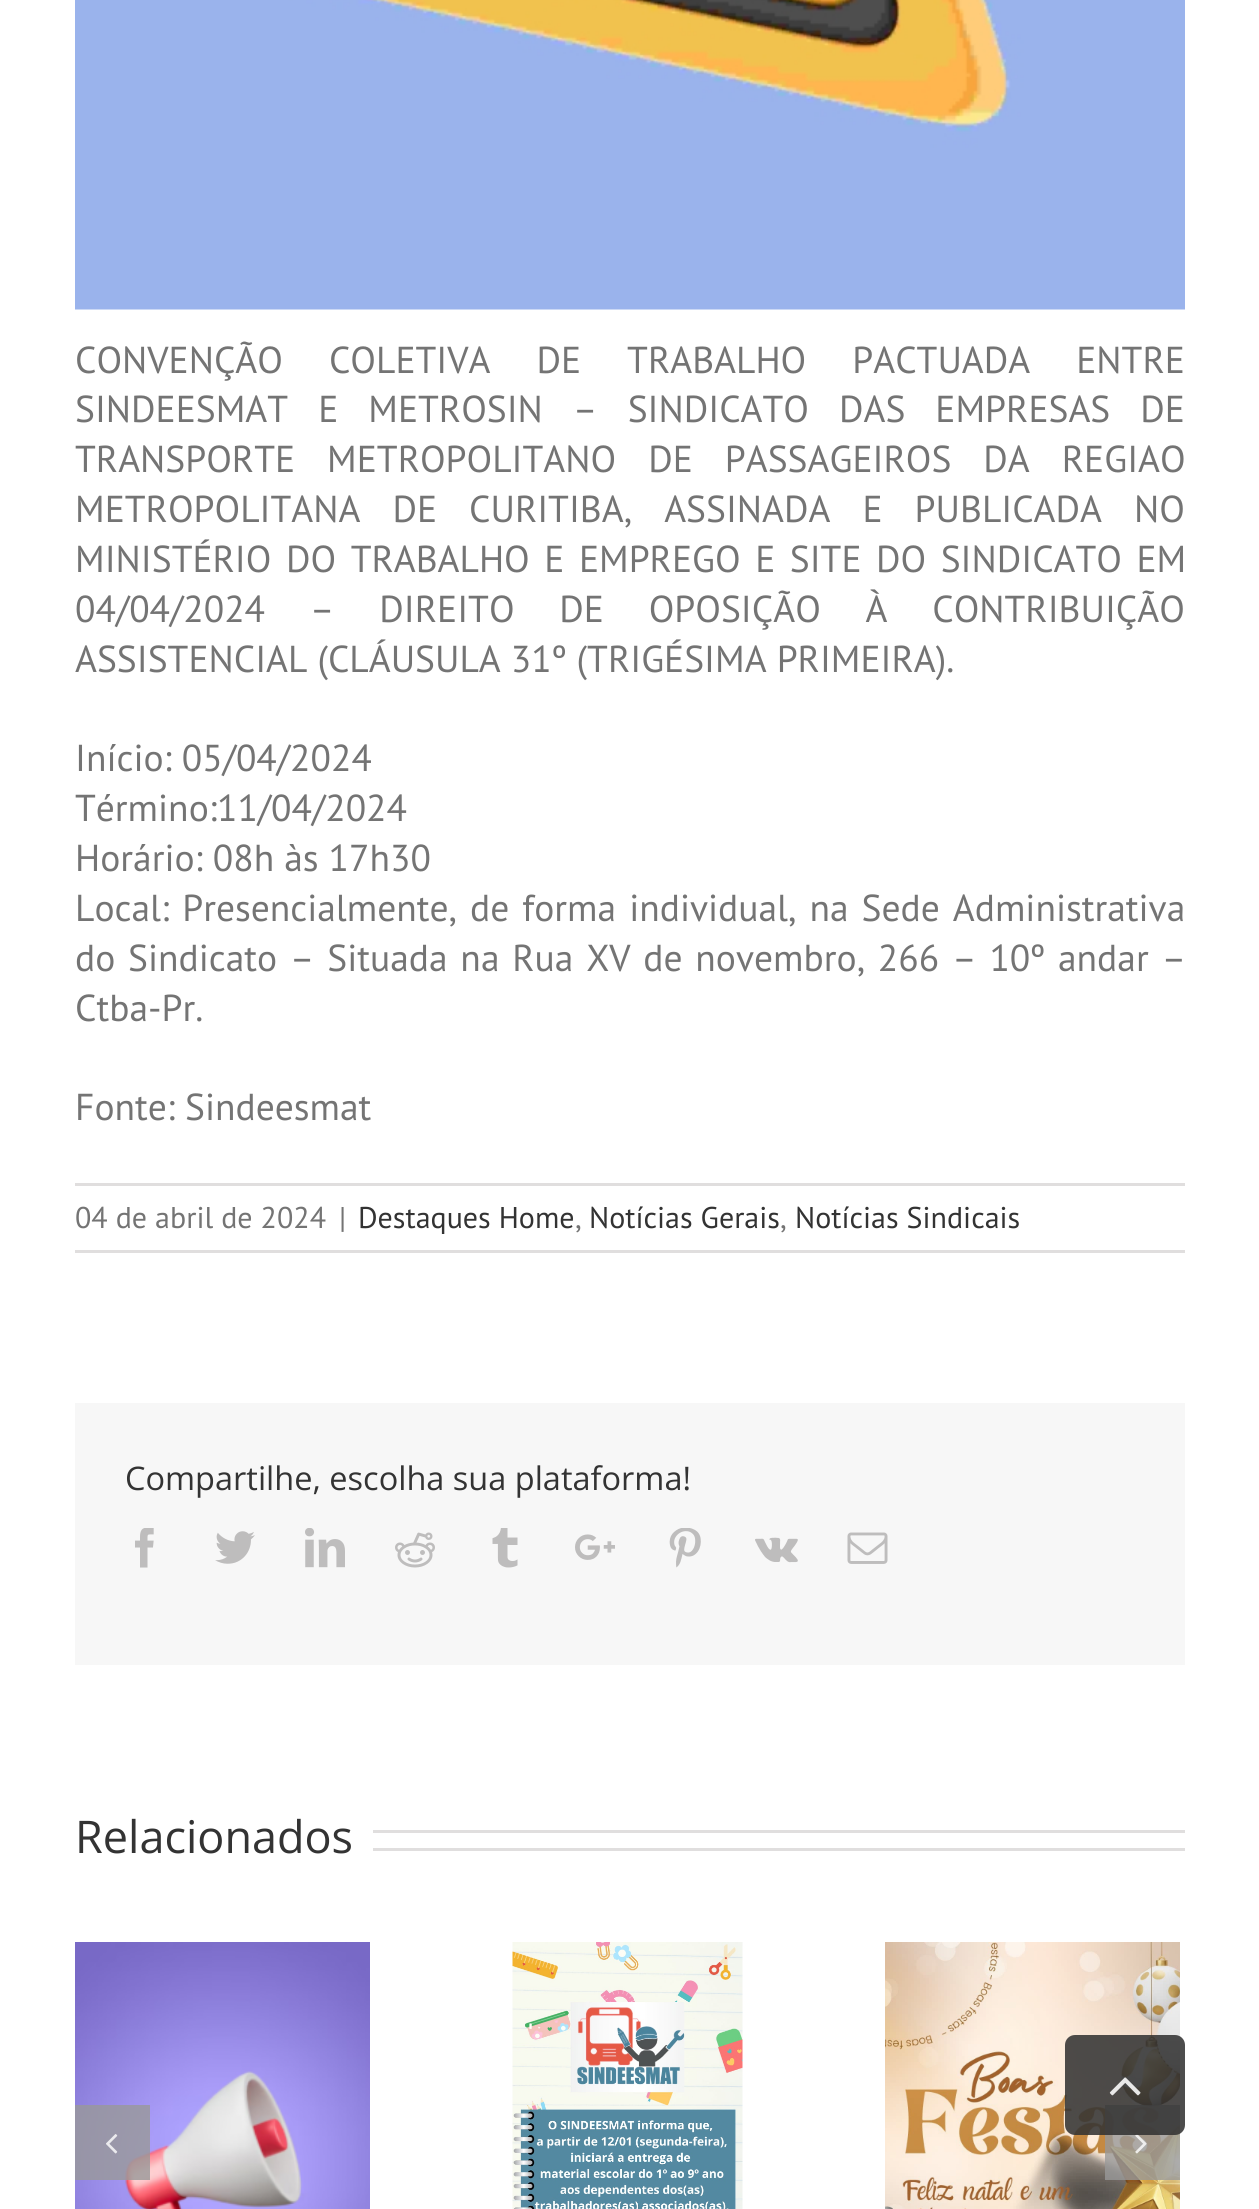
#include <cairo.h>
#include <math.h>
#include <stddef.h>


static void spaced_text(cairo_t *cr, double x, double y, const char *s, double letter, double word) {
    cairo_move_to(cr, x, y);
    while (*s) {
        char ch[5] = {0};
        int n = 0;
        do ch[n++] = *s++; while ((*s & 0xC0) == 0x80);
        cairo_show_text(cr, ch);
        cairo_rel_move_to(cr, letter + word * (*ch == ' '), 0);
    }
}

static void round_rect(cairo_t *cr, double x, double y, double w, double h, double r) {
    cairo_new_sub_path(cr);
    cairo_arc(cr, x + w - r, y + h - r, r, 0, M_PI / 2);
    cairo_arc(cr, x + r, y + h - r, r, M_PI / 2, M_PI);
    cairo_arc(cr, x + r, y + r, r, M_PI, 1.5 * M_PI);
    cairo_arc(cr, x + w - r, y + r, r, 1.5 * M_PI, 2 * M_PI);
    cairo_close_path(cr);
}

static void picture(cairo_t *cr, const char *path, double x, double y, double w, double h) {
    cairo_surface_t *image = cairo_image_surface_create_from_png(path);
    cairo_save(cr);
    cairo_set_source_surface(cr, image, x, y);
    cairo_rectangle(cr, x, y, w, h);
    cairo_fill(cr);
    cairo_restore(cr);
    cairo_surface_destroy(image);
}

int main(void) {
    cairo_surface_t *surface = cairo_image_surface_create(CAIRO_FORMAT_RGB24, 1259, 2209);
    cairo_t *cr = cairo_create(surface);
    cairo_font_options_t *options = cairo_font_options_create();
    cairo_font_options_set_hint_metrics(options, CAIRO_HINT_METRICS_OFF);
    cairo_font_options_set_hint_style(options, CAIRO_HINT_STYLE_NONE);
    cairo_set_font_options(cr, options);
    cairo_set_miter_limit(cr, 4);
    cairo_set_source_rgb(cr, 1, 1, 1);
    cairo_paint(cr);
    picture(cr, "img1.png", 75, 0, 1110, 310);
    cairo_select_font_face(cr, "PT Sans", CAIRO_FONT_SLANT_NORMAL, CAIRO_FONT_WEIGHT_NORMAL);
    cairo_set_font_size(cr, 37.5);
    cairo_set_source_rgb(cr, 0.455, 0.455, 0.455);
    spaced_text(cr, 75, 373, "CONVENÇÃO COLETIVA DE TRABALHO PACTUADA ENTRE", 0, 36);
    spaced_text(cr, 75, 422, "SINDEESMAT E METROSIN – SINDICATO DAS EMPRESAS DE", 0, 20);
    spaced_text(cr, 75, 472, "TRANSPORTE METROPOLITANO DE PASSAGEIROS DA REGIAO", 0, 22);
    spaced_text(cr, 75, 522, "METROPOLITANA DE CURITIBA, ASSINADA E PUBLICADA NO", 0, 22);
    spaced_text(cr, 75, 572, "MINISTÉRIO DO TRABALHO E EMPREGO E SITE DO SINDICATO EM", 0, 4.5);
    spaced_text(cr, 75, 622, "04/04/2024 – DIREITO DE OPOSIÇÃO À CONTRIBUIÇÃO", 0, 34.75);
    cairo_move_to(cr, 75, 672);
    cairo_show_text(cr, "ASSISTENCIAL (CLÁUSULA 31º (TRIGÉSIMA PRIMEIRA).");
    cairo_move_to(cr, 75, 771);
    cairo_show_text(cr, "Início: 05/04/2024");
    cairo_move_to(cr, 75, 821);
    cairo_show_text(cr, "Término:11/04/2024");
    cairo_move_to(cr, 75, 871);
    cairo_show_text(cr, "Horário: 08h às 17h30");
    spaced_text(cr, 75, 921, "Local: Presencialmente, de forma individual, na Sede Administrativa", 0, 3);
    spaced_text(cr, 75, 971, "do Sindicato – Situada na Rua XV de novembro, 266 – 10º andar –", 0, 2.75);
    cairo_move_to(cr, 75, 1021);
    cairo_show_text(cr, "Ctba-Pr.");
    cairo_move_to(cr, 75, 1120);
    cairo_show_text(cr, "Fonte: Sindeesmat");
    cairo_set_source_rgb(cr, 0.878, 0.871, 0.871);
    cairo_rectangle(cr, 75, 1183, 1110, 3);
    cairo_fill(cr);
    cairo_rectangle(cr, 75, 1250, 1110, 3);
    cairo_fill(cr);
    cairo_set_font_size(cr, 30);
    cairo_set_source_rgb(cr, 0.455, 0.455, 0.455);
    cairo_move_to(cr, 75, 1228);
    cairo_show_text(cr, "04 de abril de 2024");
    cairo_move_to(cr, 339, 1228);
    cairo_show_text(cr, "|");
    cairo_set_source_rgb(cr, 0.2, 0.2, 0.2);
    cairo_move_to(cr, 358, 1228);
    cairo_show_text(cr, "Destaques Home");
    cairo_set_source_rgb(cr, 0.455, 0.455, 0.455);
    cairo_move_to(cr, 575, 1228);
    cairo_show_text(cr, ",");
    cairo_set_source_rgb(cr, 0.2, 0.2, 0.2);
    cairo_move_to(cr, 589, 1228);
    cairo_show_text(cr, "Notícias Gerais");
    cairo_set_source_rgb(cr, 0.455, 0.455, 0.455);
    cairo_move_to(cr, 780, 1228);
    cairo_show_text(cr, ",");
    cairo_set_source_rgb(cr, 0.2, 0.2, 0.2);
    cairo_move_to(cr, 795, 1228);
    cairo_show_text(cr, "Notícias Sindicais");
    cairo_set_source_rgb(cr, 0.965, 0.965, 0.965);
    cairo_rectangle(cr, 75, 1403, 1110, 262);
    cairo_fill(cr);
    cairo_select_font_face(cr, "Open Sans", CAIRO_FONT_SLANT_NORMAL, CAIRO_FONT_WEIGHT_NORMAL);
    cairo_set_font_size(cr, 32.5);
    cairo_set_source_rgb(cr, 0.2, 0.2, 0.2);
    cairo_move_to(cr, 125, 1490);
    cairo_show_text(cr, "Compartilhe, escolha sua plataforma!");
    picture(cr, "img2.png", 135, 1528, 19, 40);
    picture(cr, "img3.png", 215, 1531, 40, 33);
    picture(cr, "img4.png", 305, 1528, 40, 40);
    picture(cr, "img5.png", 395, 1532, 40, 36);
    picture(cr, "img6.png", 492, 1528, 26, 40);
    picture(cr, "img7.png", 575, 1534, 40, 26);
    picture(cr, "img8.png", 669, 1528, 32, 40);
    picture(cr, "img9.png", 755, 1537, 43, 26);
    picture(cr, "img10.png", 847, 1532, 41, 32);
    cairo_set_font_size(cr, 45);
    cairo_move_to(cr, 75, 1853);
    cairo_show_text(cr, "Relacionados");
    cairo_set_source_rgb(cr, 0.878, 0.871, 0.871);
    cairo_rectangle(cr, 373, 1830, 812, 3);
    cairo_fill(cr);
    cairo_rectangle(cr, 373, 1848, 812, 3);
    cairo_fill(cr);
    picture(cr, "img11.png", 75, 1942, 295, 267);
    picture(cr, "img12.png", 512, 1942, 231, 267);
    picture(cr, "img13.png", 885, 1942, 295, 267);
    cairo_set_source_rgba(cr, 0.6, 0.6, 0.6, 0.8);
    cairo_rectangle(cr, 75, 2105, 75, 75);
    cairo_fill(cr);
    picture(cr, "img14.png", 106, 2134, 12, 20);
    cairo_rectangle(cr, 1105, 2105, 75, 75);
    cairo_fill(cr);
    picture(cr, "img15.png", 1135, 2134, 12, 20);
    cairo_set_source_rgba(cr, 0.2, 0.2, 0.2, 0.87);
    round_rect(cr, 1065, 2035, 120, 100, 10);
    cairo_fill(cr);
    picture(cr, "img16.png", 1109, 2077, 32, 19);
    cairo_surface_write_to_png(surface, "page.png");
    cairo_font_options_destroy(options);
    cairo_destroy(cr);
    cairo_surface_destroy(surface);
    return 0;
}
